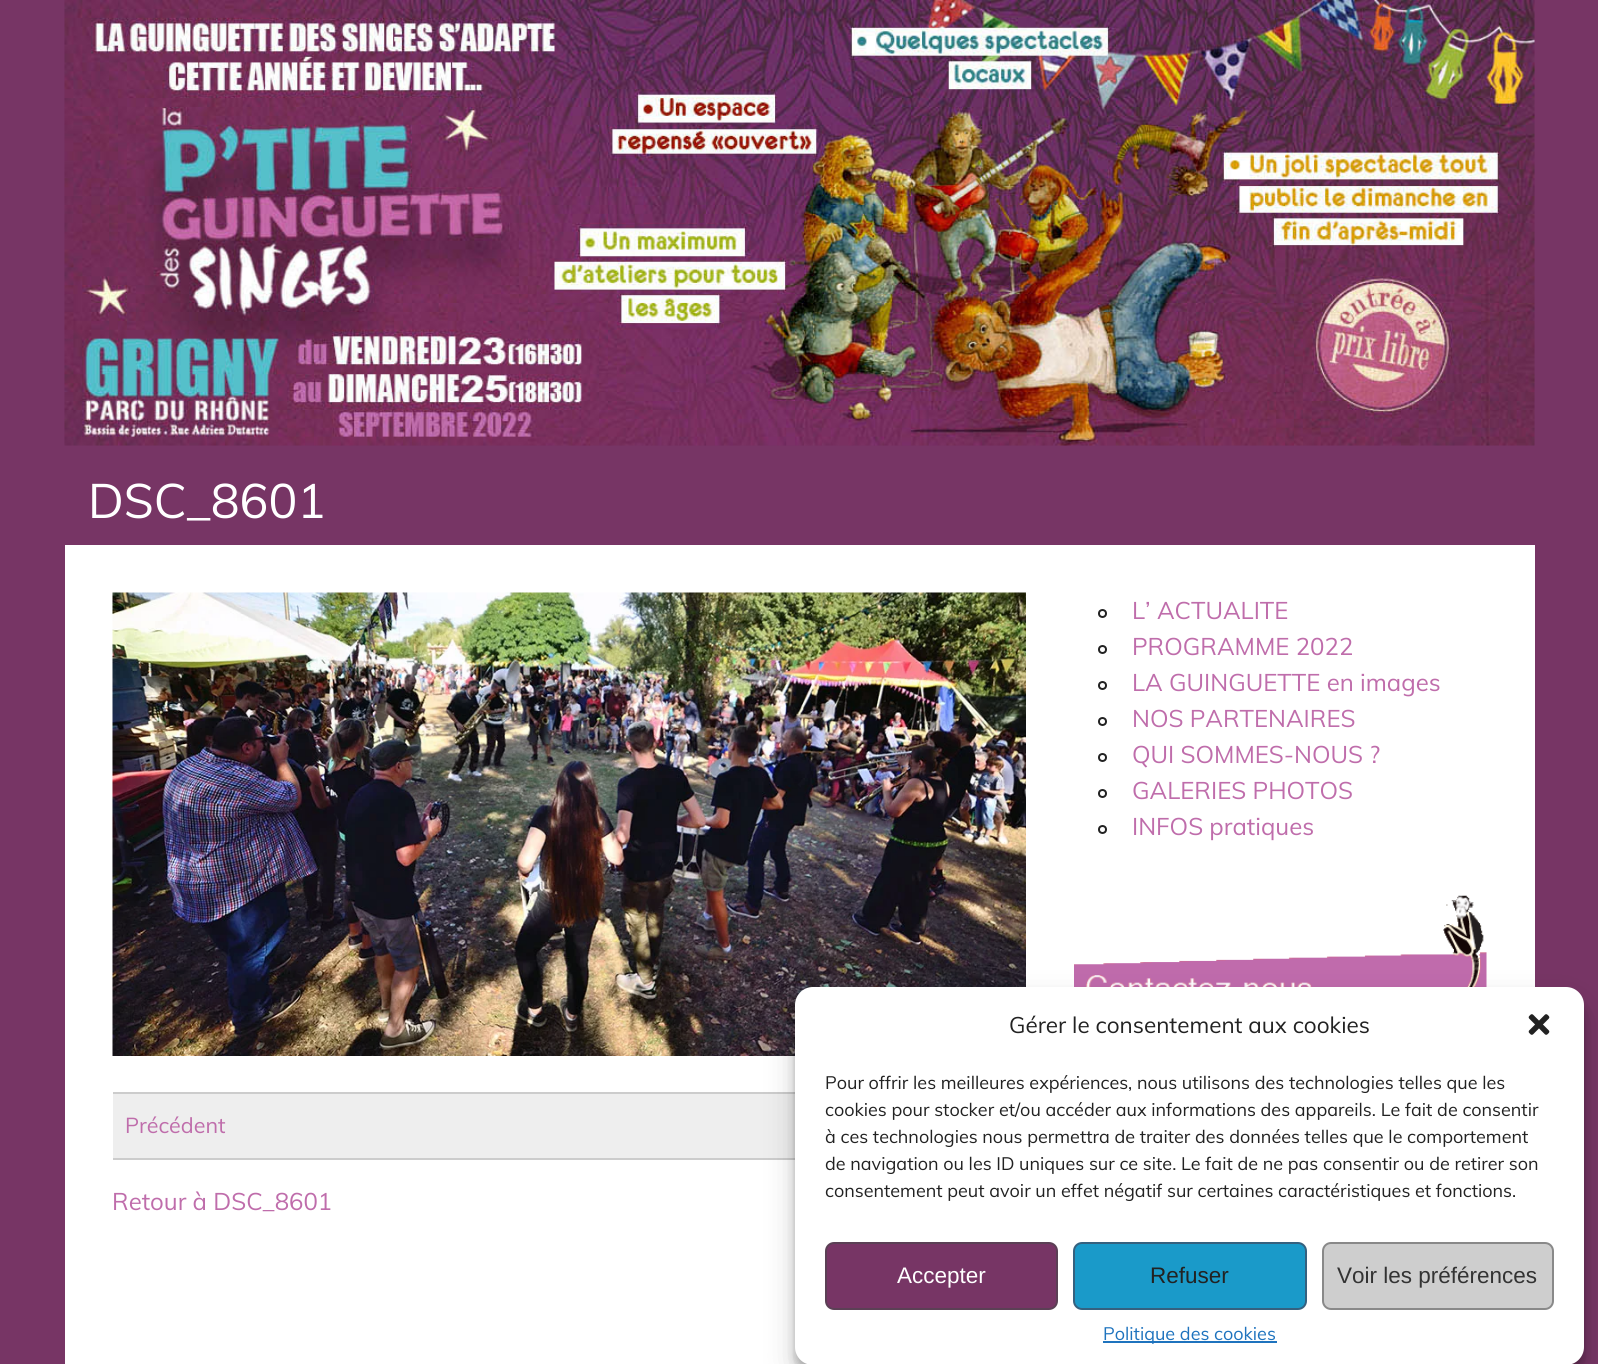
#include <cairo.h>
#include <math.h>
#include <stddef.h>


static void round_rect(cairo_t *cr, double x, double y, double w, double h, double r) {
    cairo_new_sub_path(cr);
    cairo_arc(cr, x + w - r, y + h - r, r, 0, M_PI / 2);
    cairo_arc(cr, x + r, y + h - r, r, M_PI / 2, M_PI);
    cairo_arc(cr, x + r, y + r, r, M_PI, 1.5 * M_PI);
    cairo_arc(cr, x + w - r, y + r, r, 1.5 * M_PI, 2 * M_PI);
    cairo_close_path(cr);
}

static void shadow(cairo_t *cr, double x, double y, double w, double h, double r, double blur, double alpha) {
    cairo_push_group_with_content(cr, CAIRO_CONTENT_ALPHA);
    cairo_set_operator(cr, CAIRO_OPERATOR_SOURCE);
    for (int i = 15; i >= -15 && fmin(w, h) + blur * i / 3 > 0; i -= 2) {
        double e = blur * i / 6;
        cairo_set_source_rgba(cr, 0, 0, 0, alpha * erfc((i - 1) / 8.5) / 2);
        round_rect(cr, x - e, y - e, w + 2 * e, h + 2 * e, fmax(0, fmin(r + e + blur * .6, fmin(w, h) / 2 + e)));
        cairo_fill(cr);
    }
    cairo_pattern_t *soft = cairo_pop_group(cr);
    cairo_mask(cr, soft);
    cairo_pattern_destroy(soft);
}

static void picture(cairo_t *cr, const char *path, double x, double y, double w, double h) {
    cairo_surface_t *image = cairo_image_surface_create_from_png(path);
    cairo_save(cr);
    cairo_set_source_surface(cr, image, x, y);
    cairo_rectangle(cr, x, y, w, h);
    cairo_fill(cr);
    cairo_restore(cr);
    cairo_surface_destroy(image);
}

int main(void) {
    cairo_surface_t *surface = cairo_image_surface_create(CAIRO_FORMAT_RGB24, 1598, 1364);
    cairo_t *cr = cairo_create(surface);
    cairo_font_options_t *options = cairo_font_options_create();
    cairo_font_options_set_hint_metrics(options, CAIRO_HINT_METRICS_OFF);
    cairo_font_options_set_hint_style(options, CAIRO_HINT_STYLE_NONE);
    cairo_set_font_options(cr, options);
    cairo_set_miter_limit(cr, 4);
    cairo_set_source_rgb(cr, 0.467, 0.208, 0.396);
    cairo_paint(cr);
    picture(cr, "img1.png", 64, 0, 1471, 446);
    cairo_select_font_face(cr, "Muli", CAIRO_FONT_SLANT_NORMAL, CAIRO_FONT_WEIGHT_NORMAL);
    cairo_set_font_size(cr, 48);
    cairo_set_source_rgb(cr, 1, 1, 1);
    cairo_move_to(cr, 88, 518);
    cairo_show_text(cr, "DSC_8601");
    cairo_rectangle(cr, 65, 545, 1470, 819);
    cairo_fill(cr);
    cairo_arc(cr, 1102.5, 613.5, 3.5, 0, 2 * M_PI);
    cairo_set_source_rgb(cr, 0.133, 0.133, 0.133);
    cairo_stroke(cr);
    cairo_set_font_size(cr, 24);
    cairo_set_source_rgb(cr, 0.749, 0.427, 0.671);
    cairo_move_to(cr, 1132, 619);
    cairo_show_text(cr, "L’ ACTUALITE");
    cairo_new_path(cr);
    cairo_arc(cr, 1102.5, 649.5, 3.5, 0, 2 * M_PI);
    cairo_set_source_rgb(cr, 0.133, 0.133, 0.133);
    cairo_stroke(cr);
    cairo_set_source_rgb(cr, 0.749, 0.427, 0.671);
    cairo_move_to(cr, 1132, 655);
    cairo_show_text(cr, "PROGRAMME 2022");
    cairo_new_path(cr);
    cairo_arc(cr, 1102.5, 685.5, 3.5, 0, 2 * M_PI);
    cairo_set_source_rgb(cr, 0.133, 0.133, 0.133);
    cairo_stroke(cr);
    cairo_set_source_rgb(cr, 0.749, 0.427, 0.671);
    cairo_move_to(cr, 1132, 691);
    cairo_show_text(cr, "LA GUINGUETTE en images");
    cairo_new_path(cr);
    cairo_arc(cr, 1102.5, 721.5, 3.5, 0, 2 * M_PI);
    cairo_set_source_rgb(cr, 0.133, 0.133, 0.133);
    cairo_stroke(cr);
    cairo_set_source_rgb(cr, 0.749, 0.427, 0.671);
    cairo_move_to(cr, 1132, 727);
    cairo_show_text(cr, "NOS PARTENAIRES");
    cairo_new_path(cr);
    cairo_arc(cr, 1102.5, 757.5, 3.5, 0, 2 * M_PI);
    cairo_set_source_rgb(cr, 0.133, 0.133, 0.133);
    cairo_stroke(cr);
    cairo_set_source_rgb(cr, 0.749, 0.427, 0.671);
    cairo_move_to(cr, 1132, 763);
    cairo_show_text(cr, "QUI SOMMES-NOUS ?");
    cairo_new_path(cr);
    cairo_arc(cr, 1102.5, 793.5, 3.5, 0, 2 * M_PI);
    cairo_set_source_rgb(cr, 0.133, 0.133, 0.133);
    cairo_stroke(cr);
    cairo_set_source_rgb(cr, 0.749, 0.427, 0.671);
    cairo_move_to(cr, 1132, 799);
    cairo_show_text(cr, "GALERIES PHOTOS");
    cairo_new_path(cr);
    cairo_arc(cr, 1102.5, 829.5, 3.5, 0, 2 * M_PI);
    cairo_set_source_rgb(cr, 0.133, 0.133, 0.133);
    cairo_stroke(cr);
    cairo_set_source_rgb(cr, 0.749, 0.427, 0.671);
    cairo_move_to(cr, 1132, 835);
    cairo_show_text(cr, "INFOS pratiques");
    picture(cr, "img2.png", 1074, 895, 413, 92);
    picture(cr, "img3.png", 112, 592, 914, 464);
    cairo_set_source_rgb(cr, 0.933, 0.933, 0.933);
    cairo_rectangle(cr, 113, 1094, 682, 64);
    cairo_fill(cr);
    cairo_set_source_rgb(cr, 0.8, 0.8, 0.8);
    cairo_rectangle(cr, 113, 1092, 682, 2);
    cairo_fill(cr);
    cairo_rectangle(cr, 113, 1158, 682, 2);
    cairo_fill(cr);
    cairo_set_font_size(cr, 21.5);
    cairo_set_source_rgb(cr, 0.749, 0.427, 0.671);
    cairo_move_to(cr, 125, 1133);
    cairo_show_text(cr, "Précédent");
    cairo_set_font_size(cr, 24);
    cairo_move_to(cr, 112, 1210);
    cairo_show_text(cr, "Retour à DSC_8601");
    cairo_set_source_rgb(cr, 0, 0, 0);
    shadow(cr, 795, 996, 789, 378, 18, 4.5, 0.23);
    shadow(cr, 795, 1002, 789, 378, 18, 15, 0.19);
    cairo_set_source_rgb(cr, 1, 1, 1);
    round_rect(cr, 795, 987, 789, 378, 18);
    cairo_fill(cr);
    cairo_set_font_size(cr, 22.5);
    cairo_set_source_rgb(cr, 0.133, 0.133, 0.133);
    cairo_move_to(cr, 1009, 1033);
    cairo_show_text(cr, "Gérer le consentement aux cookies");
    picture(cr, "img4.png", 1528, 1014, 22, 21);
    cairo_set_font_size(cr, 18);
    cairo_move_to(cr, 825, 1089);
    cairo_show_text(cr, "Pour offrir les meilleures expériences, nous utilisons des technologies telles que les");
    cairo_move_to(cr, 825, 1116);
    cairo_show_text(cr, "cookies pour stocker et/ou accéder aux informations des appareils. Le fait de consentir");
    cairo_move_to(cr, 825, 1143);
    cairo_show_text(cr, "à ces technologies nous permettra de traiter des données telles que le comportement");
    cairo_move_to(cr, 825, 1170);
    cairo_show_text(cr, "de navigation ou les ID uniques sur ce site. Le fait de ne pas consentir ou de retirer son");
    cairo_move_to(cr, 825, 1197);
    cairo_show_text(cr, "consentement peut avoir un effet négatif sur certaines caractéristiques et fonctions.");
    cairo_set_source_rgb(cr, 0.467, 0.208, 0.396);
    round_rect(cr, 826, 1243, 231, 66, 8);
    cairo_fill_preserve(cr);
    cairo_set_source_rgb(cr, 0.357, 0.251, 0.333);
    cairo_stroke(cr);
    cairo_select_font_face(cr, "Liberation Sans", CAIRO_FONT_SLANT_NORMAL, CAIRO_FONT_WEIGHT_NORMAL);
    cairo_set_font_size(cr, 22.5);
    cairo_set_source_rgb(cr, 1, 1, 1);
    cairo_move_to(cr, 897, 1283);
    cairo_show_text(cr, "Accepter");
    cairo_set_source_rgb(cr, 0.102, 0.604, 0.788);
    round_rect(cr, 1074, 1243, 232, 66, 8);
    cairo_fill_preserve(cr);
    cairo_set_source_rgb(cr, 0.208, 0.38, 0.498);
    cairo_stroke(cr);
    cairo_set_source_rgb(cr, 0.133, 0.133, 0.133);
    cairo_move_to(cr, 1150, 1283);
    cairo_show_text(cr, "Refuser");
    cairo_set_source_rgb(cr, 0.808, 0.808, 0.808);
    round_rect(cr, 1323, 1243, 230, 66, 8);
    cairo_fill_preserve(cr);
    cairo_set_source_rgb(cr, 0.537, 0.537, 0.537);
    cairo_stroke(cr);
    cairo_set_source_rgb(cr, 0.2, 0.2, 0.2);
    cairo_move_to(cr, 1337, 1283);
    cairo_show_text(cr, "Voir les préférences");
    cairo_set_source_rgb(cr, 0.118, 0.451, 0.745);
    cairo_rectangle(cr, 1103, 1341, 174, 2);
    cairo_fill(cr);
    cairo_select_font_face(cr, "Muli", CAIRO_FONT_SLANT_NORMAL, CAIRO_FONT_WEIGHT_NORMAL);
    cairo_set_font_size(cr, 18);
    cairo_move_to(cr, 1103, 1340);
    cairo_show_text(cr, "Politique des cookies");
    cairo_surface_write_to_png(surface, "page.png");
    cairo_font_options_destroy(options);
    cairo_destroy(cr);
    cairo_surface_destroy(surface);
    return 0;
}
